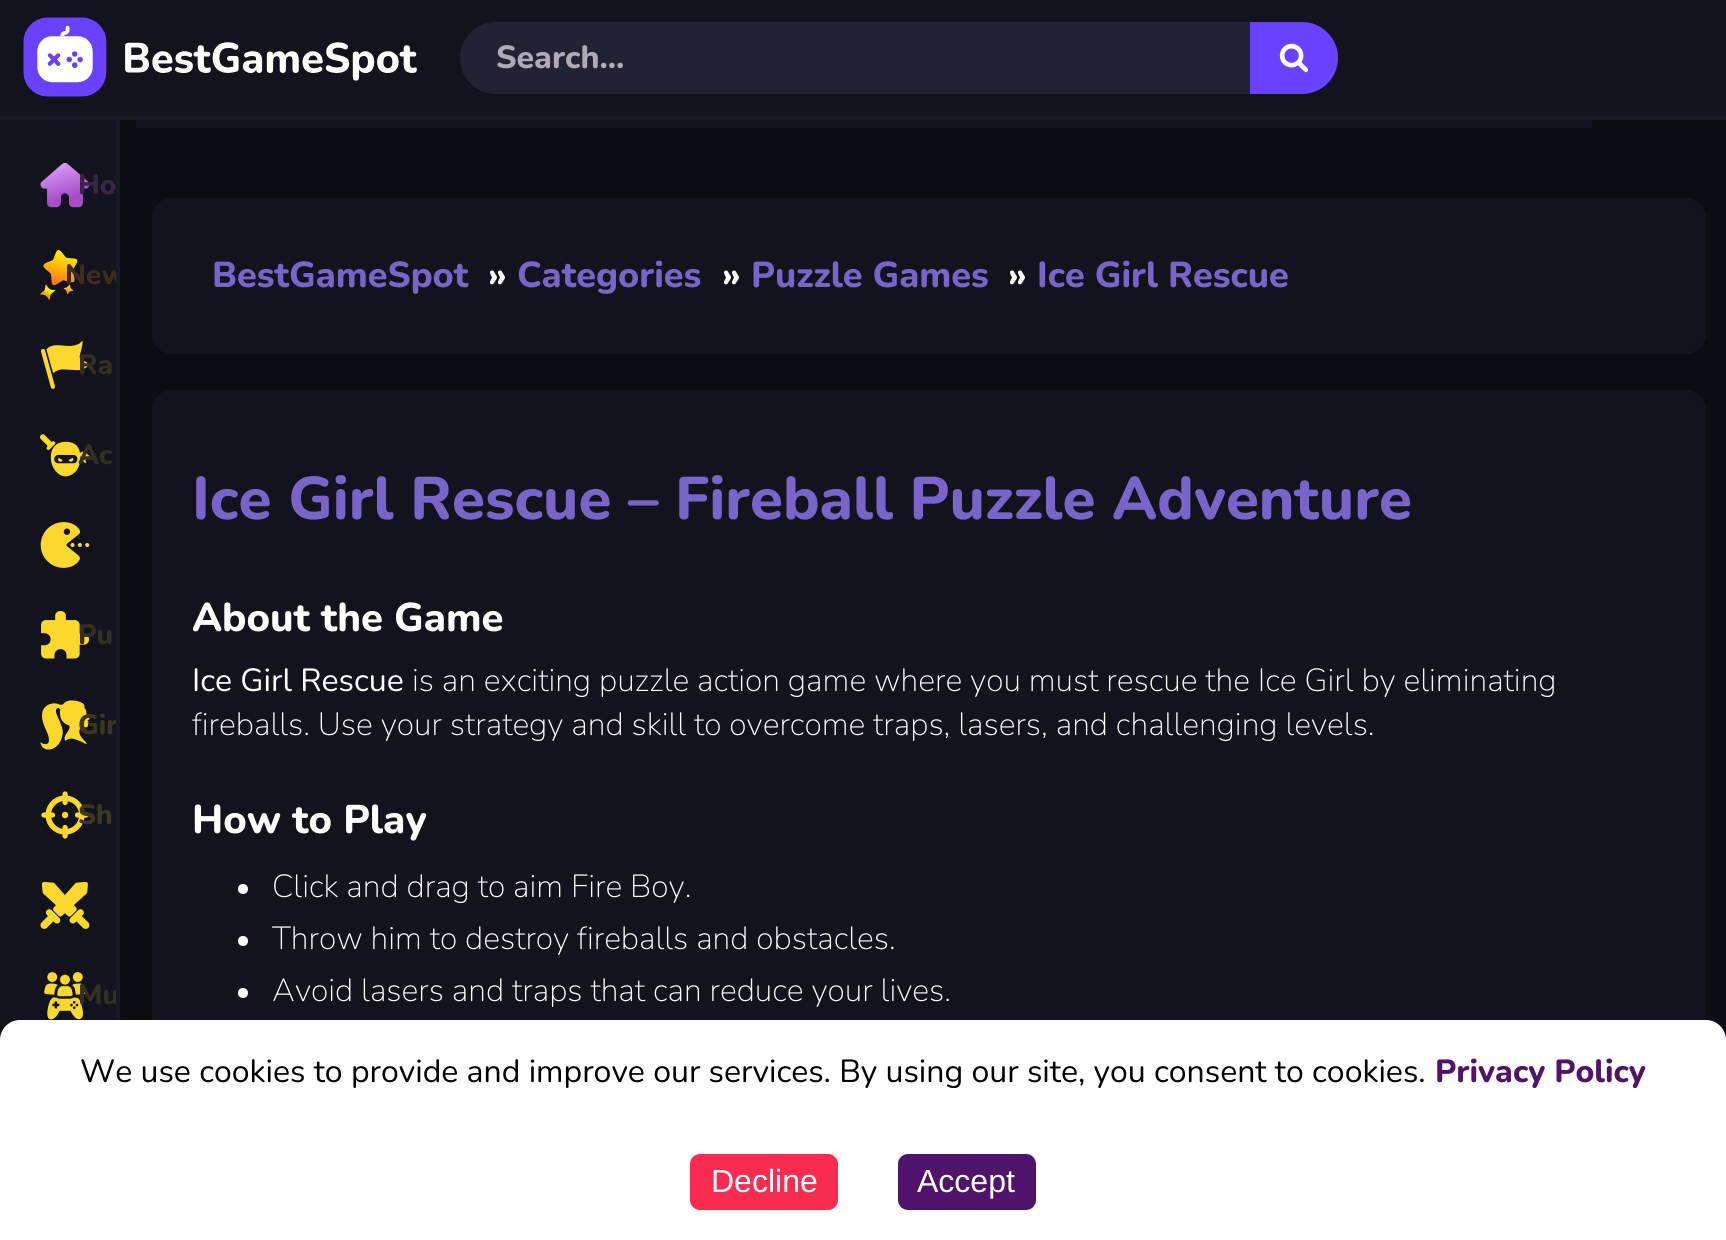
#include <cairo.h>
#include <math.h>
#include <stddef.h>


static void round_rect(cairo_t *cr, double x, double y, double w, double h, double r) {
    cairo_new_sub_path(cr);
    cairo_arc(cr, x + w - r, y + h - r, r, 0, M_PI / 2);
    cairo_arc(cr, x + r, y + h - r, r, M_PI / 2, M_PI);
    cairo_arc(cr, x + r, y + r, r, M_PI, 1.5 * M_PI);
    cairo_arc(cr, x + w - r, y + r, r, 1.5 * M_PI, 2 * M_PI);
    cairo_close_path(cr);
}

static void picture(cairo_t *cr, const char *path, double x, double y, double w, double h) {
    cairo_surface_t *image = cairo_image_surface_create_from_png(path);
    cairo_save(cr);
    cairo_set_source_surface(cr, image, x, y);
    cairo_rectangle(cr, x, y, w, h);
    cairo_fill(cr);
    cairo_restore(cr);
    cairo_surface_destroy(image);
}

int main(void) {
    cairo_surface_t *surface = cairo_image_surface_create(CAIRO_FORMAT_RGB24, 1726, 1240);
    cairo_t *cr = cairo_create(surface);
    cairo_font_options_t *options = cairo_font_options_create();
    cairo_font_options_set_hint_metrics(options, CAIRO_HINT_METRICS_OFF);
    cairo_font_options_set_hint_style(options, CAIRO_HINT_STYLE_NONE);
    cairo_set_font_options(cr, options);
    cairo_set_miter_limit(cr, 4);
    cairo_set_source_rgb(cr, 0.047, 0.051, 0.078);
    cairo_paint(cr);
    cairo_set_source_rgb(cr, 0.075, 0.078, 0.118);
    cairo_rectangle(cr, 0, 0, 1726, 116);
    cairo_fill(cr);
    cairo_set_source_rgb(cr, 0.094, 0.098, 0.153);
    cairo_rectangle(cr, 0, 116, 1726, 4);
    cairo_fill(cr);
    picture(cr, "img1.png", 23, 17, 394, 80);
    cairo_set_source_rgb(cr, 0.129, 0.133, 0.2);
    round_rect(cr, 460, 22, 876, 72, 36);
    cairo_fill(cr);
    cairo_select_font_face(cr, "Nunito ExtraBold", CAIRO_FONT_SLANT_NORMAL, CAIRO_FONT_WEIGHT_NORMAL);
    cairo_set_font_size(cr, 32);
    cairo_set_source_rgb(cr, 0.698, 0.663, 0.714);
    cairo_move_to(cr, 496, 68);
    cairo_show_text(cr, "Search...");
    cairo_set_source_rgb(cr, 0.408, 0.259, 1);
    cairo_new_path(cr);
    cairo_move_to(cr, 1250, 22);
    cairo_line_to(cr, 1302, 22);
    cairo_curve_to(cr, 1322, 22, 1338, 38, 1338, 58);
    cairo_curve_to(cr, 1338, 78, 1322, 94, 1302, 94);
    cairo_line_to(cr, 1250, 94);
    cairo_close_path(cr);
    cairo_fill(cr);
    picture(cr, "img2.png", 1279, 43, 30, 30);
    cairo_set_source_rgb(cr, 0.075, 0.078, 0.118);
    cairo_rectangle(cr, 0, 120, 116, 920);
    cairo_fill(cr);
    cairo_set_source_rgb(cr, 0.094, 0.098, 0.153);
    cairo_rectangle(cr, 116, 120, 4, 900);
    cairo_fill(cr);
    picture(cr, "img3.png", 40, 162, 50, 46);
    cairo_set_font_size(cr, 28);
    cairo_set_source_rgb(cr, 0.22, 0.149, 0.282);
    cairo_move_to(cr, 78, 194);
    cairo_show_text(cr, "Ho");
    picture(cr, "img4.png", 40, 250, 38, 50);
    cairo_save(cr);
    cairo_rectangle(cr, 0, 120, 116, 1120);
    cairo_clip(cr);
    cairo_set_source_rgb(cr, 0.235, 0.18, 0.106);
    cairo_move_to(cr, 65, 284);
    cairo_show_text(cr, "New");
    cairo_restore(cr);
    picture(cr, "img5.png", 41, 341, 48, 48);
    cairo_set_source_rgb(cr, 0.204, 0.188, 0.125);
    cairo_move_to(cr, 78, 374);
    cairo_show_text(cr, "Ra");
    picture(cr, "img6.png", 40, 434, 50, 43);
    cairo_move_to(cr, 78, 464);
    cairo_show_text(cr, "Ac");
    picture(cr, "img7.png", 40, 522, 50, 46);
    picture(cr, "img8.png", 41, 611, 48, 48);
    cairo_move_to(cr, 78, 644);
    cairo_show_text(cr, "Pu");
    picture(cr, "img9.png", 40, 700, 50, 50);
    cairo_save(cr);
    cairo_rectangle(cr, 0, 120, 116, 1120);
    cairo_clip(cr);
    cairo_set_source_rgb(cr, 0.235, 0.216, 0.129);
    cairo_move_to(cr, 78, 734);
    cairo_show_text(cr, "Gir");
    cairo_restore(cr);
    picture(cr, "img10.png", 41, 791, 48, 48);
    cairo_set_source_rgb(cr, 0.235, 0.216, 0.129);
    cairo_move_to(cr, 78, 824);
    cairo_show_text(cr, "Sh");
    picture(cr, "img11.png", 40, 881, 50, 48);
    picture(cr, "img12.png", 44, 972, 42, 48);
    cairo_save(cr);
    cairo_rectangle(cr, 0, 120, 116, 1120);
    cairo_clip(cr);
    cairo_set_source_rgb(cr, 0.204, 0.188, 0.125);
    cairo_move_to(cr, 78, 1004);
    cairo_show_text(cr, "Mu");
    cairo_restore(cr);
    cairo_set_source_rgb(cr, 0.075, 0.078, 0.118);
    cairo_rectangle(cr, 136, 120, 1456, 8);
    cairo_fill(cr);
    round_rect(cr, 152, 198, 1554, 156, 20);
    cairo_fill(cr);
    cairo_set_font_size(cr, 36);
    cairo_set_source_rgb(cr, 0.475, 0.392, 0.792);
    cairo_move_to(cr, 212, 287);
    cairo_show_text(cr, "BestGameSpot");
    cairo_set_source_rgb(cr, 1, 1, 1);
    cairo_move_to(cr, 488, 287);
    cairo_show_text(cr, "»");
    cairo_set_source_rgb(cr, 0.475, 0.392, 0.792);
    cairo_move_to(cr, 517, 287);
    cairo_show_text(cr, "Categories");
    cairo_set_source_rgb(cr, 1, 1, 1);
    cairo_move_to(cr, 722, 287);
    cairo_show_text(cr, "»");
    cairo_set_source_rgb(cr, 0.475, 0.392, 0.792);
    cairo_move_to(cr, 751, 287);
    cairo_show_text(cr, "Puzzle Games");
    cairo_set_source_rgb(cr, 1, 1, 1);
    cairo_move_to(cr, 1008, 287);
    cairo_show_text(cr, "»");
    cairo_set_source_rgb(cr, 0.475, 0.392, 0.792);
    cairo_move_to(cr, 1037, 287);
    cairo_show_text(cr, "Ice Girl Rescue");
    cairo_set_source_rgb(cr, 0.075, 0.078, 0.118);
    round_rect(cr, 152, 390, 1554, 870, 20);
    cairo_fill(cr);
    cairo_set_font_size(cr, 60);
    cairo_set_source_rgb(cr, 0.475, 0.392, 0.792);
    cairo_move_to(cr, 192, 519);
    cairo_show_text(cr, "Ice Girl Rescue – Fireball Puzzle Adventure");
    cairo_set_font_size(cr, 40);
    cairo_set_source_rgb(cr, 1, 1, 1);
    cairo_move_to(cr, 192, 631);
    cairo_show_text(cr, "About the Game");
    cairo_select_font_face(cr, "Nunito", CAIRO_FONT_SLANT_NORMAL, CAIRO_FONT_WEIGHT_NORMAL);
    cairo_set_font_size(cr, 32);
    cairo_move_to(cr, 192, 691);
    cairo_show_text(cr, "Ice Girl Rescue");
    cairo_select_font_face(cr, "Nunito ExtraLight", CAIRO_FONT_SLANT_NORMAL, CAIRO_FONT_WEIGHT_NORMAL);
    cairo_move_to(cr, 412, 691);
    cairo_show_text(cr, "is an exciting puzzle action game where you must rescue the Ice Girl by eliminating");
    cairo_move_to(cr, 192, 735);
    cairo_show_text(cr, "fireballs. Use your strategy and skill to overcome traps, lasers, and challenging levels.");
    cairo_select_font_face(cr, "Nunito ExtraBold", CAIRO_FONT_SLANT_NORMAL, CAIRO_FONT_WEIGHT_NORMAL);
    cairo_set_font_size(cr, 40);
    cairo_move_to(cr, 192, 833);
    cairo_show_text(cr, "How to Play");
    cairo_new_path(cr);
    cairo_arc(cr, 243, 889, 5, 0, 2 * M_PI);
    cairo_fill(cr);
    cairo_select_font_face(cr, "Nunito ExtraLight", CAIRO_FONT_SLANT_NORMAL, CAIRO_FONT_WEIGHT_NORMAL);
    cairo_set_font_size(cr, 32);
    cairo_move_to(cr, 272, 897);
    cairo_show_text(cr, "Click and drag to aim Fire Boy.");
    cairo_new_path(cr);
    cairo_arc(cr, 243, 941, 5, 0, 2 * M_PI);
    cairo_fill(cr);
    cairo_move_to(cr, 272, 949);
    cairo_show_text(cr, "Throw him to destroy fireballs and obstacles.");
    cairo_new_path(cr);
    cairo_arc(cr, 243, 993, 5, 0, 2 * M_PI);
    cairo_fill(cr);
    cairo_move_to(cr, 272, 1001);
    cairo_show_text(cr, "Avoid lasers and traps that can reduce your lives.");
    cairo_new_path(cr);
    cairo_move_to(cr, 20, 1020);
    cairo_line_to(cr, 1706, 1020);
    cairo_curve_to(cr, 1717, 1020, 1726, 1029, 1726, 1040);
    cairo_line_to(cr, 1726, 1240);
    cairo_line_to(cr, 0, 1240);
    cairo_line_to(cr, 0, 1040);
    cairo_curve_to(cr, 0, 1029, 9, 1020, 20, 1020);
    cairo_close_path(cr);
    cairo_fill(cr);
    cairo_select_font_face(cr, "Nunito", CAIRO_FONT_SLANT_NORMAL, CAIRO_FONT_WEIGHT_NORMAL);
    cairo_set_source_rgb(cr, 0, 0, 0);
    cairo_move_to(cr, 80, 1082);
    cairo_show_text(cr, "We use cookies to provide and improve our services. By using our site, you consent to cookies.");
    cairo_select_font_face(cr, "Nunito ExtraBold", CAIRO_FONT_SLANT_NORMAL, CAIRO_FONT_WEIGHT_NORMAL);
    cairo_set_source_rgb(cr, 0.314, 0.075, 0.424);
    cairo_move_to(cr, 1435, 1082);
    cairo_show_text(cr, "Privacy Policy");
    cairo_set_source_rgb(cr, 0.969, 0.169, 0.318);
    round_rect(cr, 690, 1154, 148, 56, 10);
    cairo_fill(cr);
    cairo_select_font_face(cr, "Liberation Sans", CAIRO_FONT_SLANT_NORMAL, CAIRO_FONT_WEIGHT_NORMAL);
    cairo_set_source_rgb(cr, 1, 1, 1);
    cairo_move_to(cr, 711, 1192);
    cairo_show_text(cr, "Decline");
    cairo_set_source_rgb(cr, 0.314, 0.075, 0.424);
    round_rect(cr, 898, 1154, 138, 56, 10);
    cairo_fill(cr);
    cairo_set_source_rgb(cr, 1, 1, 1);
    cairo_move_to(cr, 917, 1192);
    cairo_show_text(cr, "Accept");
    cairo_surface_write_to_png(surface, "page.png");
    cairo_font_options_destroy(options);
    cairo_destroy(cr);
    cairo_surface_destroy(surface);
    return 0;
}
